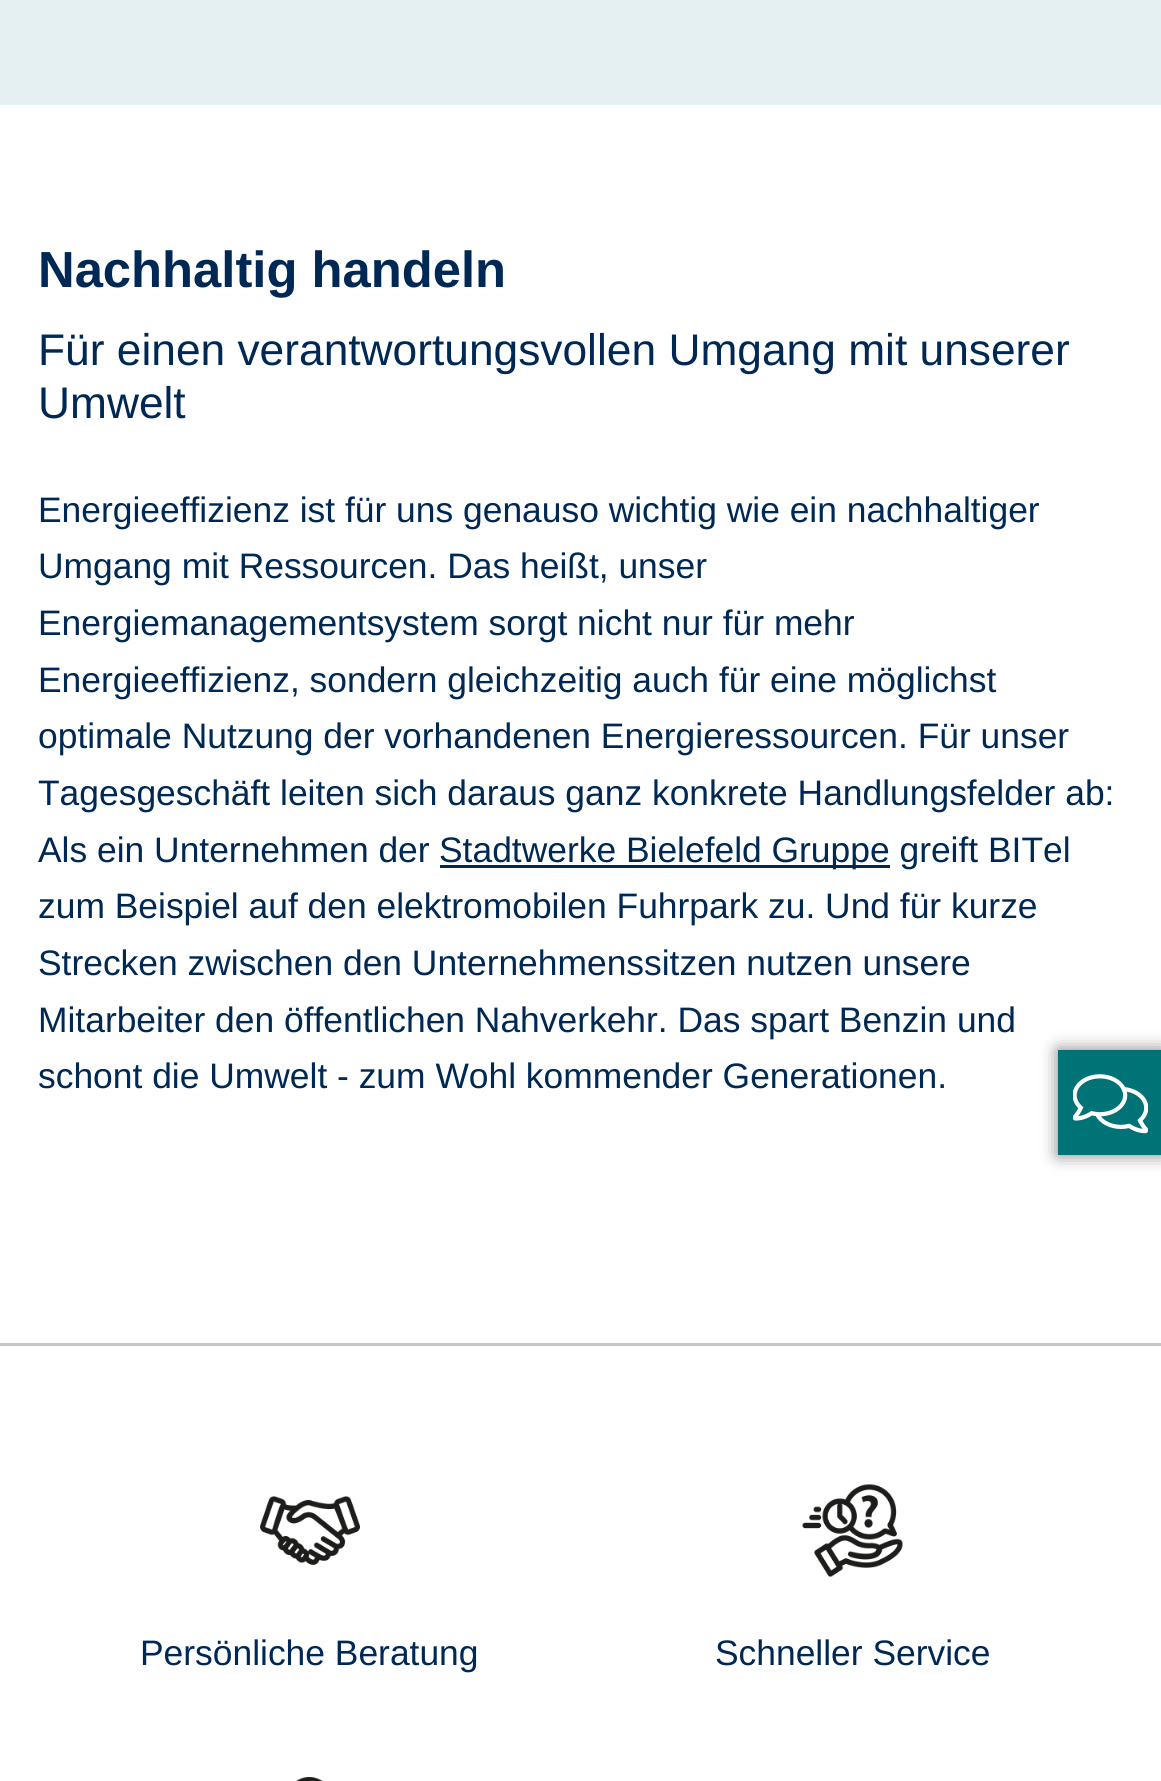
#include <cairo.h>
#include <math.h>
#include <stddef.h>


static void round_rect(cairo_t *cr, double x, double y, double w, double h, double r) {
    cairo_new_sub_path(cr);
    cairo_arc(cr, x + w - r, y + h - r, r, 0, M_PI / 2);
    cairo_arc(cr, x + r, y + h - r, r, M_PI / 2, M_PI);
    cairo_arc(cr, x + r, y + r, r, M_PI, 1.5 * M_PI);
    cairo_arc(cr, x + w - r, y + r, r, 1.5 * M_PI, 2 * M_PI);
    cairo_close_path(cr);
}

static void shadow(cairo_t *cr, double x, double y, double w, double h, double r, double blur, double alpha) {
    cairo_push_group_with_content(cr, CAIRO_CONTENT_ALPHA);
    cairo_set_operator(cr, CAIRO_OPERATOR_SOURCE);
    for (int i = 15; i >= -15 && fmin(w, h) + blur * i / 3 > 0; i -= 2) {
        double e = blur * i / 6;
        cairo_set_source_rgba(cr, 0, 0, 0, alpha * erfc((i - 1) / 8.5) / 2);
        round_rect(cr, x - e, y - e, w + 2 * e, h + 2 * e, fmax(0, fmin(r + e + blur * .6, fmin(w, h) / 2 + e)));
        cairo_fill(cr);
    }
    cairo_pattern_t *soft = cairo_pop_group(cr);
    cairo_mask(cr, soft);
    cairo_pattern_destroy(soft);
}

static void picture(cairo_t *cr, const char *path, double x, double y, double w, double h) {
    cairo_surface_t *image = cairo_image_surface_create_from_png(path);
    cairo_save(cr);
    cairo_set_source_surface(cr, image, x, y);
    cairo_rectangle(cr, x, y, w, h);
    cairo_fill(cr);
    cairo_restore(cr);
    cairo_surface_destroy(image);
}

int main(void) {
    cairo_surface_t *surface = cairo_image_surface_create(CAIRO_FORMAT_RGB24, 1161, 1781);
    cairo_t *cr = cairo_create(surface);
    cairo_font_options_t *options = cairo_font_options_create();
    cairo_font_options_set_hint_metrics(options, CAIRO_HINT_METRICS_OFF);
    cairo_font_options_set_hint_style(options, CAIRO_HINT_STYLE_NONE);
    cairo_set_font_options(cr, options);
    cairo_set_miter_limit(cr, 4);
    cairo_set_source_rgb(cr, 1, 1, 1);
    cairo_paint(cr);
    cairo_set_source_rgb(cr, 0.898, 0.941, 0.949);
    cairo_rectangle(cr, 0, 0, 1161, 105);
    cairo_fill(cr);
    cairo_select_font_face(cr, "Liberation Sans", CAIRO_FONT_SLANT_NORMAL, CAIRO_FONT_WEIGHT_BOLD);
    cairo_set_font_size(cr, 50.75);
    cairo_set_source_rgb(cr, 0, 0.157, 0.333);
    cairo_move_to(cr, 38, 287);
    cairo_show_text(cr, "Nachhaltig handeln");
    cairo_select_font_face(cr, "Liberation Sans", CAIRO_FONT_SLANT_NORMAL, CAIRO_FONT_WEIGHT_NORMAL);
    cairo_set_font_size(cr, 44.3);
    cairo_move_to(cr, 38, 365);
    cairo_show_text(cr, "Für einen verantwortungsvollen Umgang mit unserer");
    cairo_move_to(cr, 38, 418);
    cairo_show_text(cr, "Umwelt");
    cairo_set_font_size(cr, 35.4);
    cairo_move_to(cr, 38, 522);
    cairo_show_text(cr, "Energieeffizienz ist für uns genauso wichtig wie ein nachhaltiger");
    cairo_move_to(cr, 38, 578);
    cairo_show_text(cr, "Umgang mit Ressourcen. Das heißt, unser");
    cairo_move_to(cr, 38, 635);
    cairo_show_text(cr, "Energiemanagementsystem sorgt nicht nur für mehr");
    cairo_move_to(cr, 38, 692);
    cairo_show_text(cr, "Energieeffizienz, sondern gleichzeitig auch für eine möglichst");
    cairo_move_to(cr, 38, 748);
    cairo_show_text(cr, "optimale Nutzung der vorhandenen Energieressourcen. Für unser");
    cairo_move_to(cr, 38, 805);
    cairo_show_text(cr, "Tagesgeschäft leiten sich daraus ganz konkrete Handlungsfelder ab:");
    cairo_move_to(cr, 38, 862);
    cairo_show_text(cr, "Als ein Unternehmen der");
    cairo_rectangle(cr, 440, 865, 450, 3);
    cairo_fill(cr);
    cairo_move_to(cr, 439, 862);
    cairo_show_text(cr, "Stadtwerke Bielefeld Gruppe greift BITel");
    cairo_move_to(cr, 38, 918);
    cairo_show_text(cr, "zum Beispiel auf den elektromobilen Fuhrpark zu. Und für kurze");
    cairo_move_to(cr, 38, 975);
    cairo_show_text(cr, "Strecken zwischen den Unternehmenssitzen nutzen unsere");
    cairo_move_to(cr, 38, 1032);
    cairo_show_text(cr, "Mitarbeiter den öffentlichen Nahverkehr. Das spart Benzin und");
    cairo_move_to(cr, 38, 1088);
    cairo_show_text(cr, "schont die Umwelt - zum Wohl kommender Generationen.");
    cairo_set_source_rgb(cr, 0.776, 0.776, 0.776);
    cairo_rectangle(cr, 0, 1343, 1161, 3);
    cairo_fill(cr);
    picture(cr, "img1.png", 260, 1496, 100, 69);
    cairo_set_source_rgb(cr, 0, 0.157, 0.333);
    cairo_move_to(cr, 140, 1665);
    cairo_show_text(cr, "Persönliche Beratung");
    picture(cr, "img2.png", 802, 1484, 101, 93);
    cairo_move_to(cr, 715, 1665);
    cairo_show_text(cr, "Schneller Service");
    picture(cr, "img3.png", 296, 1777, 27, 4);
    cairo_set_source_rgb(cr, 0, 0, 0);
    shadow(cr, 1058, 1050, 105, 105, 0, 8.5, 0.5);
    cairo_set_source_rgb(cr, 0, 0.451, 0.467);
    cairo_rectangle(cr, 1058, 1050, 103, 105);
    cairo_fill(cr);
    picture(cr, "img4.png", 1073, 1074, 75, 60);
    cairo_surface_write_to_png(surface, "page.png");
    cairo_font_options_destroy(options);
    cairo_destroy(cr);
    cairo_surface_destroy(surface);
    return 0;
}
